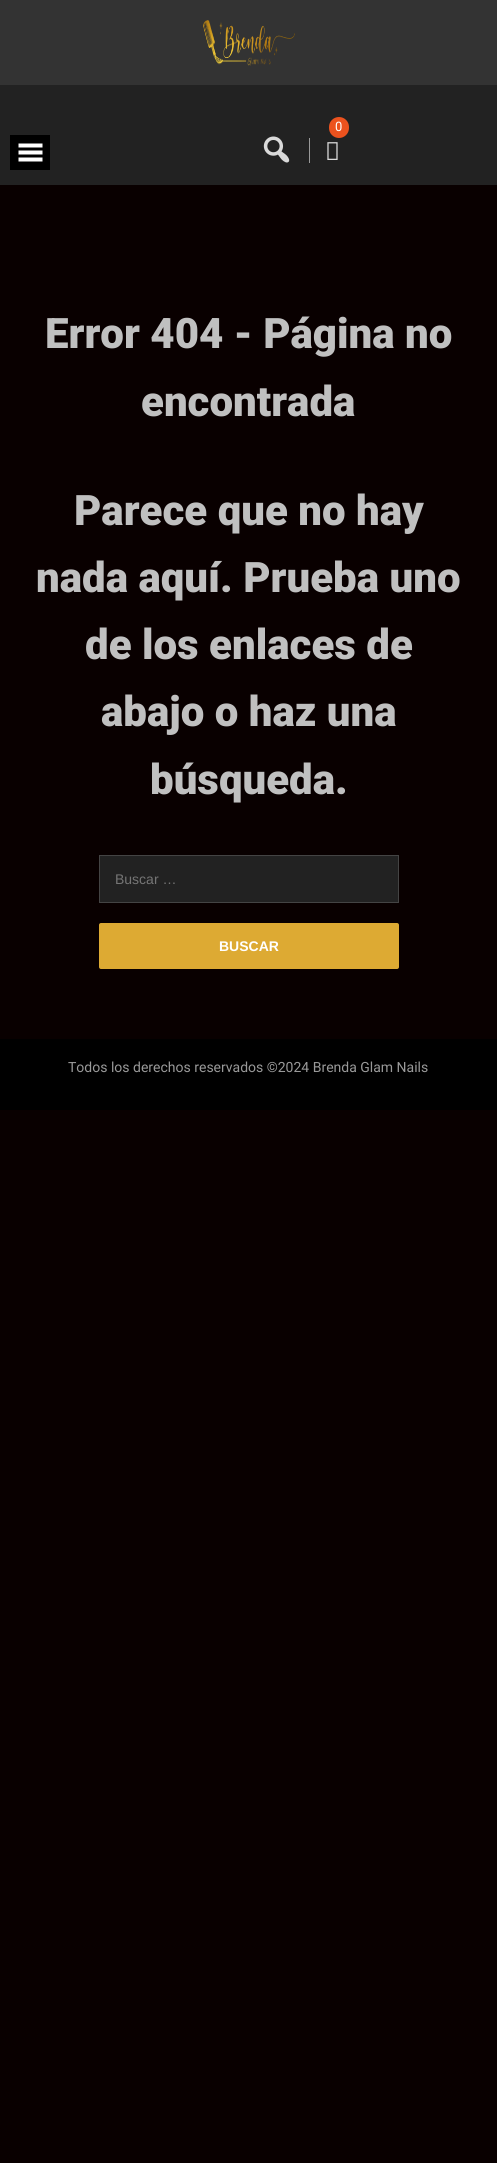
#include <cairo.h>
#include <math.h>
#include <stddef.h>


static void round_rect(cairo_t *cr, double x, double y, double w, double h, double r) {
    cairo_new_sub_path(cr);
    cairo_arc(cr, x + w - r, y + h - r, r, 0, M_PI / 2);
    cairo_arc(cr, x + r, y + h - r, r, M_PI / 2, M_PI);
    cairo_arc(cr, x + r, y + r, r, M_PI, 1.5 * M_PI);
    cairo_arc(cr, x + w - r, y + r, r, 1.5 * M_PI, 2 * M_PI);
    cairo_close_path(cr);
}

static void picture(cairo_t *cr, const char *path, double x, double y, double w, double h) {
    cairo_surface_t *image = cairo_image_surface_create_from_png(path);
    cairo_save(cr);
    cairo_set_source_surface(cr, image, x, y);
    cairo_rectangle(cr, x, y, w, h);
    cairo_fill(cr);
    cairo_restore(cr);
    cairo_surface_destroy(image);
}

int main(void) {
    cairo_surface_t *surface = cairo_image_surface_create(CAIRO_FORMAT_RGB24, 497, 2163);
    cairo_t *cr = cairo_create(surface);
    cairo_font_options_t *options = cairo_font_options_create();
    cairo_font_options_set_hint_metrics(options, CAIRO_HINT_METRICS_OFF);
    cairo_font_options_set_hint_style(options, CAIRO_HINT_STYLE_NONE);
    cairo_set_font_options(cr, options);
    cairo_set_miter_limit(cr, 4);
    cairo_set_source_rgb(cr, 0.039, 0, 0);
    cairo_paint(cr);
    cairo_set_source_rgb(cr, 0.2, 0.2, 0.2);
    cairo_rectangle(cr, 0, 0, 497, 85);
    cairo_fill(cr);
    picture(cr, "img1.png", 203, 20, 92, 46);
    cairo_set_source_rgb(cr, 0.133, 0.133, 0.133);
    cairo_rectangle(cr, 0, 85, 497, 100);
    cairo_fill(cr);
    cairo_set_source_rgb(cr, 0.6, 0.6, 0.6);
    cairo_rectangle(cr, 309, 138, 1, 25);
    cairo_fill(cr);
    cairo_set_source_rgb(cr, 0.925, 0.322, 0.118);
    round_rect(cr, 329, 117, 20, 21, 10);
    cairo_fill(cr);
    cairo_select_font_face(cr, "Roboto", CAIRO_FONT_SLANT_NORMAL, CAIRO_FONT_WEIGHT_NORMAL);
    cairo_set_font_size(cr, 13);
    cairo_set_source_rgb(cr, 1, 1, 1);
    cairo_move_to(cr, 335, 131);
    cairo_show_text(cr, "0");
    picture(cr, "img2.png", 327, 142, 11, 18);
    picture(cr, "img3.png", 263, 136, 27, 27);
    picture(cr, "img4.png", 10, 135, 40, 35);
    cairo_select_font_face(cr, "Roboto Black", CAIRO_FONT_SLANT_NORMAL, CAIRO_FONT_WEIGHT_NORMAL);
    cairo_set_font_size(cr, 42);
    cairo_set_source_rgb(cr, 0.753, 0.753, 0.753);
    cairo_move_to(cr, 45, 348);
    cairo_show_text(cr, "Error 404 - Página no");
    cairo_move_to(cr, 141, 416);
    cairo_show_text(cr, "encontrada");
    cairo_move_to(cr, 74, 525);
    cairo_show_text(cr, "Parece que no hay");
    cairo_move_to(cr, 36, 592);
    cairo_show_text(cr, "nada aquí. Prueba uno");
    cairo_move_to(cr, 85, 659);
    cairo_show_text(cr, "de los enlaces de");
    cairo_move_to(cr, 101, 726);
    cairo_show_text(cr, "abajo o haz una");
    cairo_move_to(cr, 150, 794);
    cairo_show_text(cr, "búsqueda.");
    cairo_set_source_rgb(cr, 0.133, 0.133, 0.133);
    cairo_rectangle(cr, 99.5, 855.5, 299, 47);
    cairo_fill_preserve(cr);
    cairo_set_source_rgb(cr, 0.267, 0.267, 0.267);
    cairo_set_line_width(cr, 1);
    cairo_stroke(cr);
    cairo_select_font_face(cr, "Liberation Sans", CAIRO_FONT_SLANT_NORMAL, CAIRO_FONT_WEIGHT_NORMAL);
    cairo_set_font_size(cr, 14);
    cairo_set_source_rgb(cr, 0.459, 0.459, 0.459);
    cairo_move_to(cr, 115, 884);
    cairo_show_text(cr, "Buscar …");
    cairo_set_source_rgb(cr, 0.867, 0.667, 0.2);
    round_rect(cr, 99, 923, 300, 46, 2);
    cairo_fill(cr);
    cairo_select_font_face(cr, "Liberation Sans", CAIRO_FONT_SLANT_NORMAL, CAIRO_FONT_WEIGHT_BOLD);
    cairo_set_source_rgb(cr, 1, 1, 1);
    cairo_move_to(cr, 219, 951);
    cairo_show_text(cr, "BUSCAR");
    cairo_set_source_rgb(cr, 0, 0, 0);
    cairo_rectangle(cr, 0, 1039, 497, 71);
    cairo_fill(cr);
    cairo_select_font_face(cr, "Roboto", CAIRO_FONT_SLANT_NORMAL, CAIRO_FONT_WEIGHT_NORMAL);
    cairo_set_source_rgb(cr, 0.6, 0.6, 0.6);
    cairo_move_to(cr, 68, 1072);
    cairo_show_text(cr, "Todos los derechos reservados ©2024 Brenda Glam Nails");
    cairo_surface_write_to_png(surface, "page.png");
    cairo_font_options_destroy(options);
    cairo_destroy(cr);
    cairo_surface_destroy(surface);
    return 0;
}
